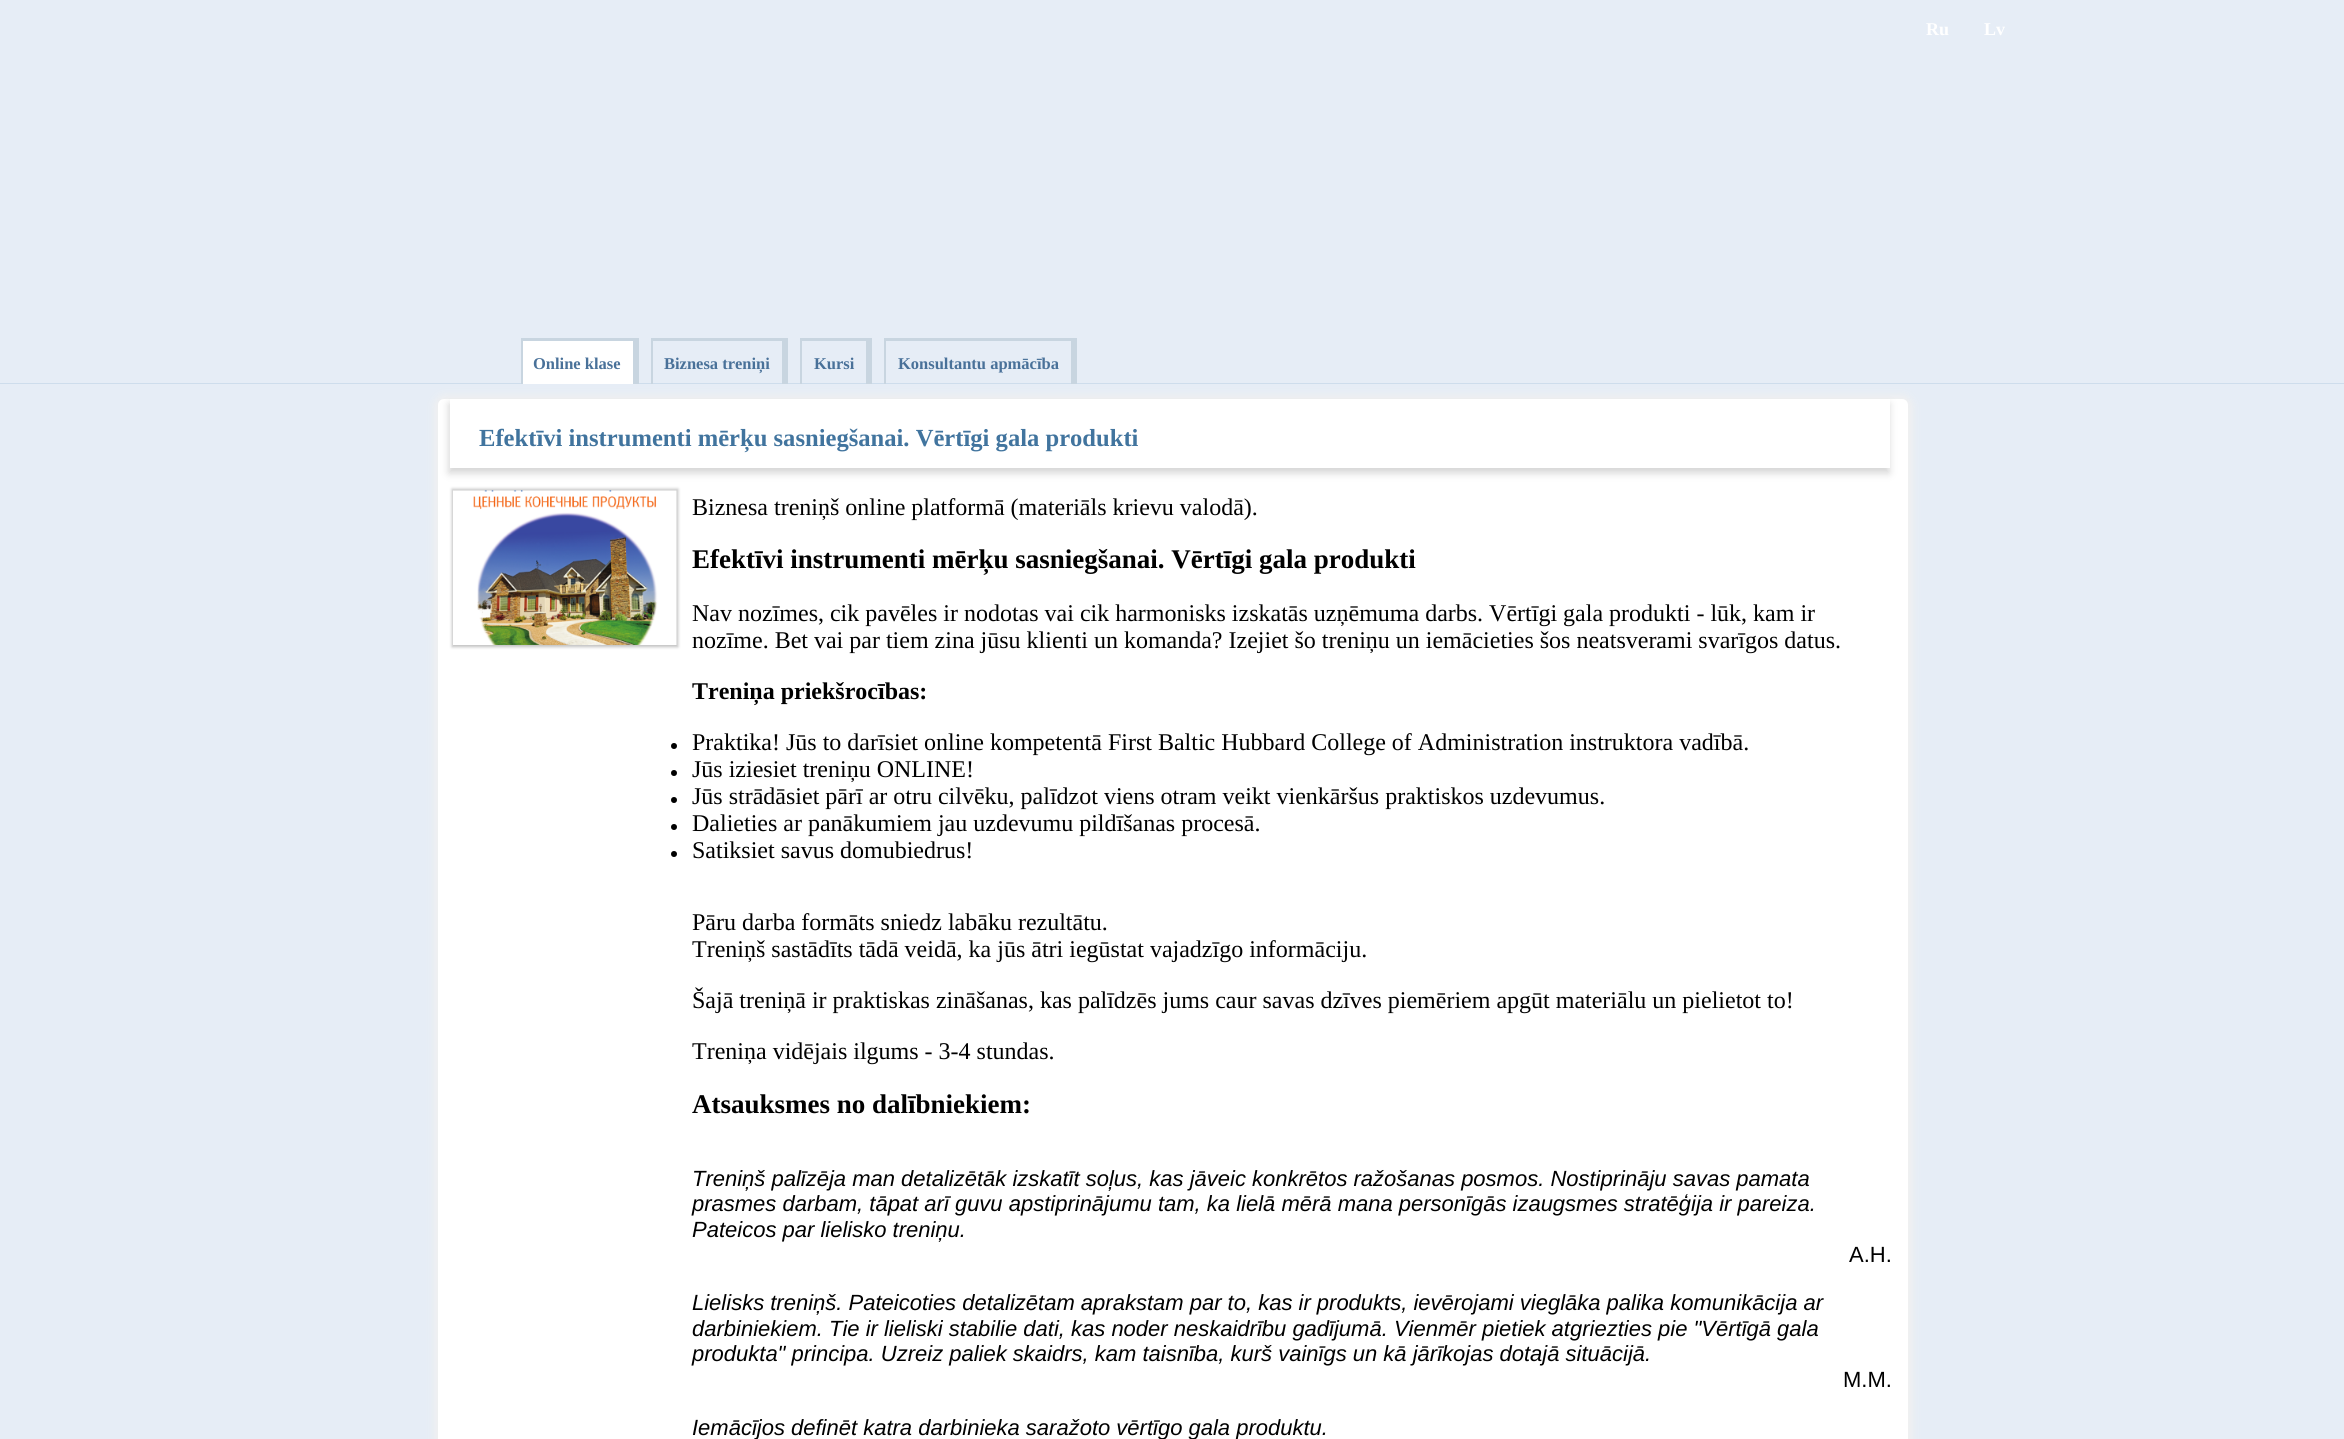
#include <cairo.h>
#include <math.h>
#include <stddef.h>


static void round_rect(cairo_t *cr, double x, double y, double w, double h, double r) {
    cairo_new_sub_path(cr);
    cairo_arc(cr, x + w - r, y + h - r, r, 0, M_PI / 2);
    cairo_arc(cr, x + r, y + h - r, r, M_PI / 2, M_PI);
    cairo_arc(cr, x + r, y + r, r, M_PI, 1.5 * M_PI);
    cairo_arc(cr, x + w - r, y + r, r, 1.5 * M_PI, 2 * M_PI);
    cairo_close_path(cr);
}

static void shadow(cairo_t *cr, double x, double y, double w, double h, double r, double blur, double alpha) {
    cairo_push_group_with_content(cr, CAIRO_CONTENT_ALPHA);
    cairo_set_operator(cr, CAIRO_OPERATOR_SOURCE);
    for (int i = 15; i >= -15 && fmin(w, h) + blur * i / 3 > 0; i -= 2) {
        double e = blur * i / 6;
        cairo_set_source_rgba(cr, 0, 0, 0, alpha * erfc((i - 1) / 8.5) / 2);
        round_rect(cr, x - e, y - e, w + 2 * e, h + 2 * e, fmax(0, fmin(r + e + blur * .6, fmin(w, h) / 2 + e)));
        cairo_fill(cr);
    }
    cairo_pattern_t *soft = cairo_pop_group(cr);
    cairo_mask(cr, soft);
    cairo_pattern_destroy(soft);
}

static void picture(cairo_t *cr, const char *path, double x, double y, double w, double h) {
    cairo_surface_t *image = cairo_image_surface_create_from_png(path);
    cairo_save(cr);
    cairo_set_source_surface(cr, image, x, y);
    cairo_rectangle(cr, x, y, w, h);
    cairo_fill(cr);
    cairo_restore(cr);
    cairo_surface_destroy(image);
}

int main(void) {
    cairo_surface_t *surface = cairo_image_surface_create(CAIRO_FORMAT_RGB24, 2344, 1439);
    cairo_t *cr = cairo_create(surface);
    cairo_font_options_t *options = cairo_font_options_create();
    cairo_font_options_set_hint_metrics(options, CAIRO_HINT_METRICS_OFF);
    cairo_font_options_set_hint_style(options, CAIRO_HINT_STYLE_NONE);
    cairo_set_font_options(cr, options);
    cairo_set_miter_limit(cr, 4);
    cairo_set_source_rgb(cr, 0.902, 0.929, 0.961);
    cairo_paint(cr);
    cairo_select_font_face(cr, "Liberation Serif", CAIRO_FONT_SLANT_NORMAL, CAIRO_FONT_WEIGHT_BOLD);
    cairo_set_font_size(cr, 18);
    cairo_set_source_rgb(cr, 1, 1, 1);
    cairo_move_to(cr, 1926, 35);
    cairo_show_text(cr, "Ru");
    cairo_move_to(cr, 1984, 35);
    cairo_show_text(cr, "Lv");
    cairo_set_source_rgb(cr, 0.808, 0.867, 0.925);
    cairo_rectangle(cr, 0, 383, 2344, 1);
    cairo_fill(cr);
    cairo_set_source_rgb(cr, 0.941, 0.941, 0.941);
    shadow(cr, 434, 395, 1479, 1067, 11, 4, 1);
    cairo_set_source_rgb(cr, 1, 1, 1);
    cairo_rectangle(cr, 523, 341, 110, 43);
    cairo_fill(cr);
    cairo_set_source_rgb(cr, 0.784, 0.835, 0.878);
    cairo_rectangle(cr, 521, 338, 118, 3);
    cairo_fill(cr);
    cairo_rectangle(cr, 633, 338, 6, 46);
    cairo_fill(cr);
    cairo_rectangle(cr, 521, 338, 2, 46);
    cairo_fill(cr);
    cairo_set_font_size(cr, 16.5);
    cairo_set_source_rgb(cr, 0.286, 0.443, 0.6);
    cairo_move_to(cr, 533, 369);
    cairo_show_text(cr, "Online klase");
    cairo_set_source_rgb(cr, 0.784, 0.835, 0.878);
    cairo_rectangle(cr, 651, 338, 137, 3);
    cairo_fill(cr);
    cairo_rectangle(cr, 782, 338, 6, 46);
    cairo_fill(cr);
    cairo_rectangle(cr, 651, 338, 2, 46);
    cairo_fill(cr);
    cairo_set_source_rgb(cr, 0.286, 0.443, 0.6);
    cairo_move_to(cr, 664, 369);
    cairo_show_text(cr, "Biznesa treniņi");
    cairo_set_source_rgb(cr, 0.784, 0.835, 0.878);
    cairo_rectangle(cr, 800, 338, 72, 3);
    cairo_fill(cr);
    cairo_rectangle(cr, 866, 338, 6, 46);
    cairo_fill(cr);
    cairo_rectangle(cr, 800, 338, 2, 46);
    cairo_fill(cr);
    cairo_set_source_rgb(cr, 0.286, 0.443, 0.6);
    cairo_move_to(cr, 814, 369);
    cairo_show_text(cr, "Kursi");
    cairo_set_source_rgb(cr, 0.784, 0.835, 0.878);
    cairo_rectangle(cr, 884, 338, 193, 3);
    cairo_fill(cr);
    cairo_rectangle(cr, 1071, 338, 6, 46);
    cairo_fill(cr);
    cairo_rectangle(cr, 884, 338, 2, 46);
    cairo_fill(cr);
    cairo_set_source_rgb(cr, 0.286, 0.443, 0.6);
    cairo_move_to(cr, 898, 369);
    cairo_show_text(cr, "Konsultantu apmācība");
    cairo_set_source_rgb(cr, 1, 1, 1);
    round_rect(cr, 438, 399, 1470, 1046, 6);
    cairo_fill(cr);
    cairo_save(cr);
    cairo_set_fill_rule(cr, CAIRO_FILL_RULE_EVEN_ODD);
    cairo_new_path(cr);
    cairo_move_to(cr, 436, 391);
    cairo_line_to(cr, 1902, 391);
    cairo_line_to(cr, 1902, 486);
    cairo_line_to(cr, 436, 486);
    cairo_close_path(cr);
    cairo_move_to(cr, 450, 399);
    cairo_line_to(cr, 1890, 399);
    cairo_line_to(cr, 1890, 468);
    cairo_line_to(cr, 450, 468);
    cairo_close_path(cr);
    cairo_clip(cr);
    cairo_set_source_rgb(cr, 0.831, 0.831, 0.831);
    shadow(cr, 449, 404, 1440, 69, 0, 4, 1);
    cairo_restore(cr);
    cairo_set_font_size(cr, 24.6);
    cairo_set_source_rgb(cr, 0.255, 0.455, 0.62);
    cairo_move_to(cr, 479, 446);
    cairo_show_text(cr, "Efektīvi instrumenti mērķu sasniegšanai. Vērtīgi gala produkti");
    cairo_set_source_rgb(cr, 0.753, 0.753, 0.753);
    shadow(cr, 452, 489, 226, 158, 0, 1.5, 1);
    picture(cr, "img1.png", 453, 490, 224, 155);
    cairo_select_font_face(cr, "Liberation Serif", CAIRO_FONT_SLANT_NORMAL, CAIRO_FONT_WEIGHT_NORMAL);
    cairo_set_font_size(cr, 24);
    cairo_set_source_rgb(cr, 0, 0, 0);
    cairo_move_to(cr, 692, 515);
    cairo_show_text(cr, "Biznesa treniņš online platformā (materiāls krievu valodā).");
    cairo_select_font_face(cr, "Liberation Serif", CAIRO_FONT_SLANT_NORMAL, CAIRO_FONT_WEIGHT_BOLD);
    cairo_set_font_size(cr, 27);
    cairo_move_to(cr, 692, 568);
    cairo_show_text(cr, "Efektīvi instrumenti mērķu sasniegšanai. Vērtīgi gala produkti");
    cairo_select_font_face(cr, "Liberation Serif", CAIRO_FONT_SLANT_NORMAL, CAIRO_FONT_WEIGHT_NORMAL);
    cairo_set_font_size(cr, 24);
    cairo_move_to(cr, 692, 621);
    cairo_show_text(cr, "Nav nozīmes, cik pavēles ir nodotas vai cik harmonisks izskatās uzņēmuma darbs. Vērtīgi gala produkti - lūk, kam ir");
    cairo_move_to(cr, 692, 648);
    cairo_show_text(cr, "nozīme. Bet vai par tiem zina jūsu klienti un komanda? Izejiet šo treniņu un iemācieties šos neatsverami svarīgos datus.");
    cairo_select_font_face(cr, "Liberation Serif", CAIRO_FONT_SLANT_NORMAL, CAIRO_FONT_WEIGHT_BOLD);
    cairo_move_to(cr, 692, 699);
    cairo_show_text(cr, "Treniņa priekšrocības:");
    cairo_new_path(cr);
    cairo_arc(cr, 674, 746, 3, 0, 2 * M_PI);
    cairo_fill(cr);
    cairo_select_font_face(cr, "Liberation Serif", CAIRO_FONT_SLANT_NORMAL, CAIRO_FONT_WEIGHT_NORMAL);
    cairo_move_to(cr, 692, 750);
    cairo_show_text(cr, "Praktika! Jūs to darīsiet online kompetentā First Baltic Hubbard College of Administration instruktora vadībā.");
    cairo_new_path(cr);
    cairo_arc(cr, 674, 773, 3, 0, 2 * M_PI);
    cairo_fill(cr);
    cairo_move_to(cr, 692, 777);
    cairo_show_text(cr, "Jūs iziesiet treniņu ONLINE!");
    cairo_new_path(cr);
    cairo_arc(cr, 674, 800, 3, 0, 2 * M_PI);
    cairo_fill(cr);
    cairo_move_to(cr, 692, 804);
    cairo_show_text(cr, "Jūs strādāsiet pārī ar otru cilvēku, palīdzot viens otram veikt vienkāršus praktiskos uzdevumus.");
    cairo_new_path(cr);
    cairo_arc(cr, 674, 827, 3, 0, 2 * M_PI);
    cairo_fill(cr);
    cairo_move_to(cr, 692, 831);
    cairo_show_text(cr, "Dalieties ar panākumiem jau uzdevumu pildīšanas procesā.");
    cairo_new_path(cr);
    cairo_arc(cr, 674, 854, 3, 0, 2 * M_PI);
    cairo_fill(cr);
    cairo_move_to(cr, 692, 858);
    cairo_show_text(cr, "Satiksiet savus domubiedrus!");
    cairo_move_to(cr, 692, 930);
    cairo_show_text(cr, "Pāru darba formāts sniedz labāku rezultātu.");
    cairo_move_to(cr, 692, 957);
    cairo_show_text(cr, "Treniņš sastādīts tādā veidā, ka jūs ātri iegūstat vajadzīgo informāciju.");
    cairo_move_to(cr, 692, 1008);
    cairo_show_text(cr, "Šajā treniņā ir praktiskas zināšanas, kas palīdzēs jums caur savas dzīves piemēriem apgūt materiālu un pielietot to!");
    cairo_move_to(cr, 692, 1059);
    cairo_show_text(cr, "Treniņa vidējais ilgums - 3-4 stundas.");
    cairo_select_font_face(cr, "Liberation Serif", CAIRO_FONT_SLANT_NORMAL, CAIRO_FONT_WEIGHT_BOLD);
    cairo_set_font_size(cr, 27);
    cairo_move_to(cr, 692, 1113);
    cairo_show_text(cr, "Atsauksmes no dalībniekiem:");
    cairo_select_font_face(cr, "Liberation Sans", CAIRO_FONT_SLANT_ITALIC, CAIRO_FONT_WEIGHT_NORMAL);
    cairo_set_font_size(cr, 22);
    cairo_move_to(cr, 692, 1186);
    cairo_show_text(cr, "Treniņš palīzēja man detalizētāk izskatīt soļus, kas jāveic konkrētos ražošanas posmos. Nostiprināju savas pamata");
    cairo_move_to(cr, 692, 1211);
    cairo_show_text(cr, "prasmes darbam, tāpat arī guvu apstiprinājumu tam, ka lielā mērā mana personīgās izaugsmes stratēģija ir pareiza.");
    cairo_move_to(cr, 692, 1237);
    cairo_show_text(cr, "Pateicos par lielisko treniņu.");
    cairo_select_font_face(cr, "Liberation Sans", CAIRO_FONT_SLANT_NORMAL, CAIRO_FONT_WEIGHT_NORMAL);
    cairo_move_to(cr, 1849, 1262);
    cairo_show_text(cr, "A.H.");
    cairo_select_font_face(cr, "Liberation Sans", CAIRO_FONT_SLANT_ITALIC, CAIRO_FONT_WEIGHT_NORMAL);
    cairo_move_to(cr, 692, 1310);
    cairo_show_text(cr, "Lielisks treniņš. Pateicoties detalizētam aprakstam par to, kas ir produkts, ievērojami vieglāka palika komunikācija ar");
    cairo_move_to(cr, 692, 1336);
    cairo_show_text(cr, "darbiniekiem. Tie ir lieliski stabilie dati, kas noder neskaidrību gadījumā. Vienmēr pietiek atgriezties pie \"Vērtīgā gala");
    cairo_move_to(cr, 692, 1361);
    cairo_show_text(cr, "produkta\" principa. Uzreiz paliek skaidrs, kam taisnība, kurš vainīgs un kā jārīkojas dotajā situācijā.");
    cairo_select_font_face(cr, "Liberation Sans", CAIRO_FONT_SLANT_NORMAL, CAIRO_FONT_WEIGHT_NORMAL);
    cairo_move_to(cr, 1843, 1387);
    cairo_show_text(cr, "M.M.");
    cairo_select_font_face(cr, "Liberation Sans", CAIRO_FONT_SLANT_ITALIC, CAIRO_FONT_WEIGHT_NORMAL);
    cairo_move_to(cr, 692, 1435);
    cairo_show_text(cr, "Iemācījos definēt katra darbinieka saražoto vērtīgo gala produktu.");
    cairo_surface_write_to_png(surface, "page.png");
    cairo_font_options_destroy(options);
    cairo_destroy(cr);
    cairo_surface_destroy(surface);
    return 0;
}
